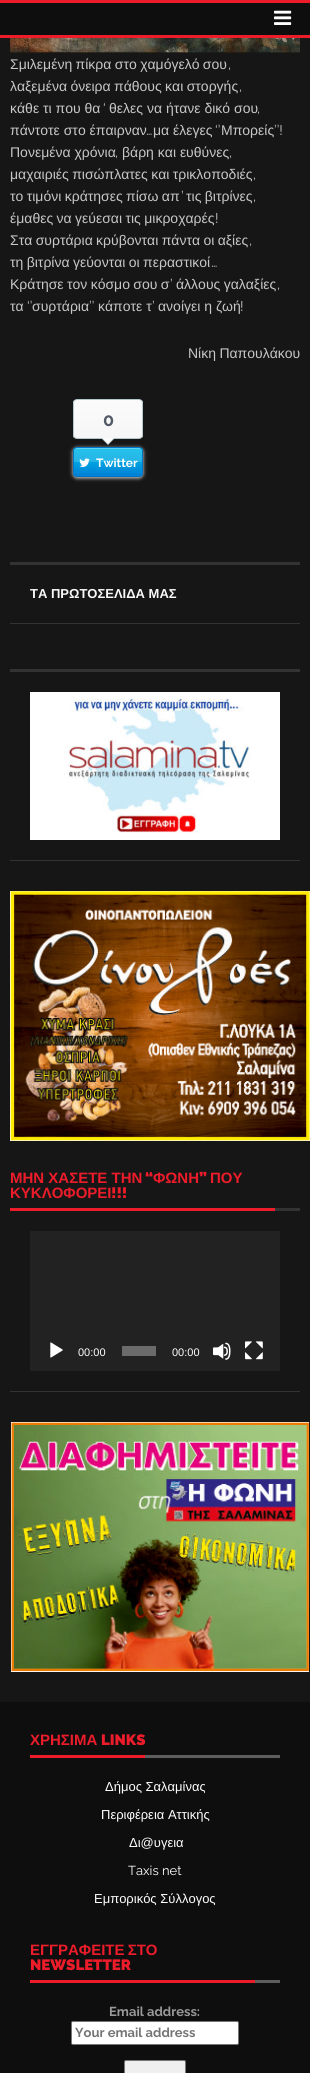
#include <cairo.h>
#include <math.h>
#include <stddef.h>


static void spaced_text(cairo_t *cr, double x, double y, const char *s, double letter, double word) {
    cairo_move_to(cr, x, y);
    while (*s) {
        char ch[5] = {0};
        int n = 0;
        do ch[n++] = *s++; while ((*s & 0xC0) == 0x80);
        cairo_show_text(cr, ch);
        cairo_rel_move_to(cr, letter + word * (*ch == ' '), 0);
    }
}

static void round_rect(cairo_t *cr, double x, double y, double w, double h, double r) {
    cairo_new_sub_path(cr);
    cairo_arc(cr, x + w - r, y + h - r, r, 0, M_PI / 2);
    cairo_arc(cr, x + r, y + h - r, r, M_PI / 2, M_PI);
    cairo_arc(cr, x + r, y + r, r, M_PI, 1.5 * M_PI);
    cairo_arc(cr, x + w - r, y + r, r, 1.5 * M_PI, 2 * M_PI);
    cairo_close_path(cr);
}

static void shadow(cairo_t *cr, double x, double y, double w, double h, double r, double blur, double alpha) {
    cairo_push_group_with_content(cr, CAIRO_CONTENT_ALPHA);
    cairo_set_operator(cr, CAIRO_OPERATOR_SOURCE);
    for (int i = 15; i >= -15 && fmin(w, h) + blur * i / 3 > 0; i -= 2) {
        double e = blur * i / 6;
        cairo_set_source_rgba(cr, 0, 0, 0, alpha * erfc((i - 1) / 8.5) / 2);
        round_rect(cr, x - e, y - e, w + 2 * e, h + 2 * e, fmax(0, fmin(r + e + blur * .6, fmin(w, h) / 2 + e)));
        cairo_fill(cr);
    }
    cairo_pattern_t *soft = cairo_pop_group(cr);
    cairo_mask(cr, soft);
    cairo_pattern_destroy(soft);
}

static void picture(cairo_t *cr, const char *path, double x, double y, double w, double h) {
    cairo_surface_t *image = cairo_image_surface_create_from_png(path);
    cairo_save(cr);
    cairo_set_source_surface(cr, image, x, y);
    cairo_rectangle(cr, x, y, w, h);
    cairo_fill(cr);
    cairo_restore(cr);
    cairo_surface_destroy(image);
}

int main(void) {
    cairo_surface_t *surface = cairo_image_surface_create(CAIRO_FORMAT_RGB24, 310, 2073);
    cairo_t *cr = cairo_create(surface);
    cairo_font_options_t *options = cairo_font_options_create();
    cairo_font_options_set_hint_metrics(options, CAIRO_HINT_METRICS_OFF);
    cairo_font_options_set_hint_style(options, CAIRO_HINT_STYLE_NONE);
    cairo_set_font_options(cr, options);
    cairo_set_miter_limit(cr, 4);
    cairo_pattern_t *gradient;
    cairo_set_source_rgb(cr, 0.086, 0.086, 0.086);
    cairo_paint(cr);
    cairo_set_source_rgb(cr, 0.925, 0.11, 0.165);
    cairo_rectangle(cr, 0, 0, 310, 3);
    cairo_fill(cr);
    cairo_set_source_rgb(cr, 0.055, 0.055, 0.055);
    cairo_rectangle(cr, 0, 3, 310, 32);
    cairo_fill(cr);
    cairo_set_source_rgb(cr, 0.925, 0.11, 0.165);
    cairo_rectangle(cr, 0, 35, 310, 3);
    cairo_fill(cr);
    picture(cr, "img1.png", 274, 10, 18, 15);
    picture(cr, "img2.png", 10, 38, 290, 15);
    cairo_select_font_face(cr, "Liberation Sans", CAIRO_FONT_SLANT_NORMAL, CAIRO_FONT_WEIGHT_NORMAL);
    cairo_set_font_size(cr, 14);
    cairo_set_source_rgb(cr, 0.78, 0.78, 0.78);
    spaced_text(cr, 10, 69, "Σμιλεμένη πίκρα στο χαμόγελό σου", 0, -0.5);
    cairo_select_font_face(cr, "Raleway", CAIRO_FONT_SLANT_NORMAL, CAIRO_FONT_WEIGHT_NORMAL);
    cairo_move_to(cr, 228, 69);
    cairo_show_text(cr, ",");
    cairo_select_font_face(cr, "Liberation Sans", CAIRO_FONT_SLANT_NORMAL, CAIRO_FONT_WEIGHT_NORMAL);
    spaced_text(cr, 10, 91, "λαξεμένα όνειρα πάθους και στοργής", 0, -0.5);
    cairo_select_font_face(cr, "Raleway", CAIRO_FONT_SLANT_NORMAL, CAIRO_FONT_WEIGHT_NORMAL);
    cairo_move_to(cr, 239, 91);
    cairo_show_text(cr, ",");
    cairo_select_font_face(cr, "Liberation Sans", CAIRO_FONT_SLANT_NORMAL, CAIRO_FONT_WEIGHT_NORMAL);
    cairo_move_to(cr, 10, 113);
    cairo_show_text(cr, "κάθε τι που θα");
    cairo_select_font_face(cr, "Raleway", CAIRO_FONT_SLANT_NORMAL, CAIRO_FONT_WEIGHT_NORMAL);
    cairo_move_to(cr, 103, 113);
    cairo_show_text(cr, "‘");
    cairo_select_font_face(cr, "Liberation Sans", CAIRO_FONT_SLANT_NORMAL, CAIRO_FONT_WEIGHT_NORMAL);
    cairo_move_to(cr, 109, 113);
    cairo_show_text(cr, "θελες να ήτανε δικό σου");
    cairo_select_font_face(cr, "Raleway", CAIRO_FONT_SLANT_NORMAL, CAIRO_FONT_WEIGHT_NORMAL);
    cairo_move_to(cr, 257, 113);
    cairo_show_text(cr, ",");
    cairo_select_font_face(cr, "Liberation Sans", CAIRO_FONT_SLANT_NORMAL, CAIRO_FONT_WEIGHT_NORMAL);
    cairo_move_to(cr, 10, 135);
    cairo_show_text(cr, "πάντοτε στο έπαιρναν");
    cairo_select_font_face(cr, "Raleway", CAIRO_FONT_SLANT_NORMAL, CAIRO_FONT_WEIGHT_NORMAL);
    cairo_move_to(cr, 146, 135);
    cairo_show_text(cr, "…");
    cairo_select_font_face(cr, "Liberation Sans", CAIRO_FONT_SLANT_NORMAL, CAIRO_FONT_WEIGHT_NORMAL);
    cairo_move_to(cr, 153, 135);
    cairo_show_text(cr, "μα έλεγες");
    cairo_select_font_face(cr, "Raleway", CAIRO_FONT_SLANT_NORMAL, CAIRO_FONT_WEIGHT_NORMAL);
    cairo_move_to(cr, 215, 135);
    cairo_show_text(cr, "‘’");
    cairo_select_font_face(cr, "Liberation Sans", CAIRO_FONT_SLANT_NORMAL, CAIRO_FONT_WEIGHT_NORMAL);
    cairo_move_to(cr, 221, 135);
    cairo_show_text(cr, "Μπορείς");
    cairo_select_font_face(cr, "Raleway", CAIRO_FONT_SLANT_NORMAL, CAIRO_FONT_WEIGHT_NORMAL);
    cairo_move_to(cr, 274, 135);
    cairo_show_text(cr, "’’!");
    cairo_select_font_face(cr, "Liberation Sans", CAIRO_FONT_SLANT_NORMAL, CAIRO_FONT_WEIGHT_NORMAL);
    cairo_move_to(cr, 10, 157);
    cairo_show_text(cr, "Πονεμένα χρόνια");
    cairo_select_font_face(cr, "Raleway", CAIRO_FONT_SLANT_NORMAL, CAIRO_FONT_WEIGHT_NORMAL);
    cairo_move_to(cr, 115, 157);
    cairo_show_text(cr, ",");
    cairo_select_font_face(cr, "Liberation Sans", CAIRO_FONT_SLANT_NORMAL, CAIRO_FONT_WEIGHT_NORMAL);
    cairo_move_to(cr, 122, 157);
    cairo_show_text(cr, "βάρη και ευθύνες");
    cairo_select_font_face(cr, "Raleway", CAIRO_FONT_SLANT_NORMAL, CAIRO_FONT_WEIGHT_NORMAL);
    cairo_move_to(cr, 229, 157);
    cairo_show_text(cr, ",");
    cairo_select_font_face(cr, "Liberation Sans", CAIRO_FONT_SLANT_NORMAL, CAIRO_FONT_WEIGHT_NORMAL);
    spaced_text(cr, 10, 179, "μαχαιριές πισώπλατες και τρικλοποδιές", 0, -0.5);
    cairo_select_font_face(cr, "Raleway", CAIRO_FONT_SLANT_NORMAL, CAIRO_FONT_WEIGHT_NORMAL);
    cairo_move_to(cr, 253, 179);
    cairo_show_text(cr, ",");
    cairo_select_font_face(cr, "Liberation Sans", CAIRO_FONT_SLANT_NORMAL, CAIRO_FONT_WEIGHT_NORMAL);
    spaced_text(cr, 10, 201, "το τιμόνι κράτησες πίσω απ", 0, -0.5);
    cairo_select_font_face(cr, "Raleway", CAIRO_FONT_SLANT_NORMAL, CAIRO_FONT_WEIGHT_NORMAL);
    cairo_move_to(cr, 181, 201);
    cairo_show_text(cr, "’");
    cairo_select_font_face(cr, "Liberation Sans", CAIRO_FONT_SLANT_NORMAL, CAIRO_FONT_WEIGHT_NORMAL);
    spaced_text(cr, 186, 201, "τις βιτρίνες", 0, -0.5);
    cairo_select_font_face(cr, "Raleway", CAIRO_FONT_SLANT_NORMAL, CAIRO_FONT_WEIGHT_NORMAL);
    cairo_move_to(cr, 253, 201);
    cairo_show_text(cr, ",");
    cairo_select_font_face(cr, "Liberation Sans", CAIRO_FONT_SLANT_NORMAL, CAIRO_FONT_WEIGHT_NORMAL);
    spaced_text(cr, 10, 223, "έμαθες να γεύεσαι τις μικροχαρές", 0, -0.5);
    cairo_select_font_face(cr, "Raleway", CAIRO_FONT_SLANT_NORMAL, CAIRO_FONT_WEIGHT_NORMAL);
    cairo_move_to(cr, 215, 223);
    cairo_show_text(cr, "!");
    cairo_select_font_face(cr, "Liberation Sans", CAIRO_FONT_SLANT_NORMAL, CAIRO_FONT_WEIGHT_NORMAL);
    spaced_text(cr, 10, 245, "Στα συρτάρια κρύβονται πάντα οι αξίες", 0, -0.5);
    cairo_select_font_face(cr, "Raleway", CAIRO_FONT_SLANT_NORMAL, CAIRO_FONT_WEIGHT_NORMAL);
    cairo_move_to(cr, 249, 245);
    cairo_show_text(cr, ",");
    cairo_select_font_face(cr, "Liberation Sans", CAIRO_FONT_SLANT_NORMAL, CAIRO_FONT_WEIGHT_NORMAL);
    spaced_text(cr, 10, 267, "τη βιτρίνα γεύονται οι περαστικοί", 0, -0.5);
    cairo_select_font_face(cr, "Raleway", CAIRO_FONT_SLANT_NORMAL, CAIRO_FONT_WEIGHT_NORMAL);
    cairo_move_to(cr, 211, 267);
    cairo_show_text(cr, "…");
    cairo_select_font_face(cr, "Liberation Sans", CAIRO_FONT_SLANT_NORMAL, CAIRO_FONT_WEIGHT_NORMAL);
    spaced_text(cr, 10, 289, "Κράτησε τον κόσμο σου σ", 0, -0.5);
    cairo_select_font_face(cr, "Raleway", CAIRO_FONT_SLANT_NORMAL, CAIRO_FONT_WEIGHT_NORMAL);
    cairo_move_to(cr, 170, 289);
    cairo_show_text(cr, "’");
    cairo_select_font_face(cr, "Liberation Sans", CAIRO_FONT_SLANT_NORMAL, CAIRO_FONT_WEIGHT_NORMAL);
    spaced_text(cr, 176, 289, "άλλους γαλαξίες", 0, -0.5);
    cairo_select_font_face(cr, "Raleway", CAIRO_FONT_SLANT_NORMAL, CAIRO_FONT_WEIGHT_NORMAL);
    cairo_move_to(cr, 277, 289);
    cairo_show_text(cr, ",");
    cairo_select_font_face(cr, "Liberation Sans", CAIRO_FONT_SLANT_NORMAL, CAIRO_FONT_WEIGHT_NORMAL);
    cairo_move_to(cr, 10, 311);
    cairo_show_text(cr, "τα");
    cairo_select_font_face(cr, "Raleway", CAIRO_FONT_SLANT_NORMAL, CAIRO_FONT_WEIGHT_NORMAL);
    cairo_move_to(cr, 27, 311);
    cairo_show_text(cr, "‘’");
    cairo_select_font_face(cr, "Liberation Sans", CAIRO_FONT_SLANT_NORMAL, CAIRO_FONT_WEIGHT_NORMAL);
    cairo_move_to(cr, 32, 311);
    cairo_show_text(cr, "συρτάρια");
    cairo_select_font_face(cr, "Raleway", CAIRO_FONT_SLANT_NORMAL, CAIRO_FONT_WEIGHT_NORMAL);
    cairo_move_to(cr, 89, 311);
    cairo_show_text(cr, "’’");
    cairo_select_font_face(cr, "Liberation Sans", CAIRO_FONT_SLANT_NORMAL, CAIRO_FONT_WEIGHT_NORMAL);
    cairo_move_to(cr, 98, 311);
    cairo_show_text(cr, "κάποτε τ");
    cairo_select_font_face(cr, "Raleway", CAIRO_FONT_SLANT_NORMAL, CAIRO_FONT_WEIGHT_NORMAL);
    cairo_move_to(cr, 152, 311);
    cairo_show_text(cr, "’");
    cairo_select_font_face(cr, "Liberation Sans", CAIRO_FONT_SLANT_NORMAL, CAIRO_FONT_WEIGHT_NORMAL);
    cairo_move_to(cr, 158, 311);
    cairo_show_text(cr, "ανοίγει η ζωή");
    cairo_select_font_face(cr, "Raleway", CAIRO_FONT_SLANT_NORMAL, CAIRO_FONT_WEIGHT_NORMAL);
    cairo_move_to(cr, 240, 311);
    cairo_show_text(cr, "!");
    cairo_select_font_face(cr, "Liberation Sans", CAIRO_FONT_SLANT_NORMAL, CAIRO_FONT_WEIGHT_NORMAL);
    spaced_text(cr, 188, 358, "Νίκη Παπουλάκου", 0, -0.5);
    cairo_save(cr);
    round_rect(cr, 73, 399, 70, 40, 4);
    cairo_clip(cr);
    gradient = cairo_pattern_create_linear(108, 400, 108, 438);
    cairo_pattern_add_color_stop_rgba(gradient, 0, 0.984, 0.984, 0.984, 1);
    cairo_pattern_add_color_stop_rgba(gradient, 1, 0.965, 0.965, 0.965, 1);
    cairo_set_source(cr, gradient);
    cairo_pattern_destroy(gradient);
    cairo_rectangle(cr, 73, 400, 70, 38);
    cairo_fill(cr);
    cairo_restore(cr);
    round_rect(cr, 73.5, 399.5, 69, 39, 3.5);
    cairo_set_source_rgb(cr, 0.698, 0.776, 0.8);
    cairo_set_line_width(cr, 1);
    cairo_stroke(cr);
    cairo_select_font_face(cr, "Raleway", CAIRO_FONT_SLANT_NORMAL, CAIRO_FONT_WEIGHT_BOLD);
    cairo_set_font_size(cr, 18);
    cairo_set_source_rgb(cr, 0.322, 0.357, 0.404);
    cairo_move_to(cr, 103, 426);
    cairo_show_text(cr, "0");
    cairo_set_source_rgb(cr, 0.698, 0.776, 0.8);
    cairo_new_path(cr);
    cairo_move_to(cr, 101, 438);
    cairo_line_to(cr, 115, 438);
    cairo_line_to(cr, 108, 445);
    cairo_close_path(cr);
    cairo_fill(cr);
    cairo_set_source_rgb(cr, 0.984, 0.984, 0.984);
    cairo_new_path(cr);
    cairo_move_to(cr, 102, 438);
    cairo_line_to(cr, 114, 438);
    cairo_line_to(cr, 108, 444);
    cairo_close_path(cr);
    cairo_fill(cr);
    cairo_set_source_rgb(cr, 0.867, 0.867, 0.867);
    shadow(cr, 73, 448, 70, 30, 4, 2, 1);
    cairo_save(cr);
    round_rect(cr, 73, 447, 70, 30, 4);
    cairo_clip(cr);
    gradient = cairo_pattern_create_linear(108, 448, 108, 476);
    cairo_pattern_add_color_stop_rgba(gradient, 0, 0.149, 0.765, 0.922, 1);
    cairo_pattern_add_color_stop_rgba(gradient, 0.5, 0.149, 0.702, 0.902, 1);
    cairo_pattern_add_color_stop_rgba(gradient, 0.51, 0, 0.635, 0.882, 1);
    cairo_pattern_add_color_stop_rgba(gradient, 1, 0, 0.502, 0.839, 1);
    cairo_set_source(cr, gradient);
    cairo_pattern_destroy(gradient);
    cairo_rectangle(cr, 73, 448, 70, 28);
    cairo_fill(cr);
    cairo_restore(cr);
    cairo_set_source_rgb(cr, 0.361, 0.827, 0.945);
    cairo_new_path(cr);
    cairo_move_to(cr, 77, 449);
    cairo_line_to(cr, 139, 449);
    cairo_curve_to(cr, 141, 449, 142, 450, 142, 452);
    cairo_curve_to(cr, 142, 445, 133, 448, 129, 448);
    cairo_line_to(cr, 87, 448);
    cairo_curve_to(cr, 83, 448, 74, 445, 74, 452);
    cairo_curve_to(cr, 74, 450, 75, 449, 77, 449);
    cairo_close_path(cr);
    cairo_fill(cr);
    round_rect(cr, 73.5, 447.5, 69, 29, 3.5);
    cairo_set_source_rgb(cr, 0, 0.459, 0.773);
    cairo_stroke(cr);
    picture(cr, "img3.png", 79, 458, 11, 9);
    cairo_set_font_size(cr, 12);
    cairo_set_source_rgb(cr, 1, 1, 1);
    cairo_move_to(cr, 96, 467);
    cairo_show_text(cr, "Twitter");
    cairo_set_source_rgb(cr, 0.2, 0.2, 0.2);
    cairo_rectangle(cr, 10, 562, 290, 3);
    cairo_fill(cr);
    cairo_rectangle(cr, 10, 623, 290, 1);
    cairo_fill(cr);
    cairo_select_font_face(cr, "Liberation Sans", CAIRO_FONT_SLANT_NORMAL, CAIRO_FONT_WEIGHT_BOLD);
    cairo_set_font_size(cr, 13);
    cairo_set_source_rgb(cr, 0.973, 0.973, 0.973);
    cairo_move_to(cr, 30, 598);
    cairo_show_text(cr, "ΤΑ ΠΡΩΤΟΣΕΛΙΔΑ ΜΑΣ");
    cairo_set_source_rgb(cr, 0.2, 0.2, 0.2);
    cairo_rectangle(cr, 10, 669, 290, 3);
    cairo_fill(cr);
    cairo_rectangle(cr, 10, 860, 290, 1);
    cairo_fill(cr);
    picture(cr, "img4.png", 30, 692, 250, 148);
    picture(cr, "img5.png", 10, 891, 300, 250);
    cairo_rectangle(cr, 275, 1208, 25, 3);
    cairo_fill(cr);
    cairo_set_source_rgb(cr, 0.925, 0.11, 0.165);
    cairo_rectangle(cr, 10, 1208, 265, 3);
    cairo_fill(cr);
    cairo_set_font_size(cr, 15);
    cairo_move_to(cr, 10, 1183);
    cairo_show_text(cr, "ΜΗΝ ΧΑΣΕΤΕ ΤΗΝ");
    cairo_select_font_face(cr, "Raleway Black", CAIRO_FONT_SLANT_NORMAL, CAIRO_FONT_WEIGHT_NORMAL);
    cairo_move_to(cr, 145, 1183);
    cairo_show_text(cr, "“");
    cairo_select_font_face(cr, "Liberation Sans", CAIRO_FONT_SLANT_NORMAL, CAIRO_FONT_WEIGHT_BOLD);
    cairo_move_to(cr, 153, 1183);
    cairo_show_text(cr, "ΦΩΝΗ");
    cairo_select_font_face(cr, "Raleway Black", CAIRO_FONT_SLANT_NORMAL, CAIRO_FONT_WEIGHT_NORMAL);
    cairo_move_to(cr, 199, 1183);
    cairo_show_text(cr, "”");
    cairo_select_font_face(cr, "Liberation Sans", CAIRO_FONT_SLANT_NORMAL, CAIRO_FONT_WEIGHT_BOLD);
    cairo_move_to(cr, 210, 1183);
    cairo_show_text(cr, "ΠΟΥ");
    cairo_move_to(cr, 10, 1198);
    cairo_show_text(cr, "ΚΥΚΛΟΦΟΡΕΙ");
    cairo_select_font_face(cr, "Raleway Black", CAIRO_FONT_SLANT_NORMAL, CAIRO_FONT_WEIGHT_NORMAL);
    cairo_move_to(cr, 111, 1198);
    cairo_show_text(cr, "!!!");
    cairo_set_source_rgb(cr, 0.2, 0.2, 0.2);
    cairo_rectangle(cr, 10, 1391, 290, 1);
    cairo_fill(cr);
    cairo_set_source_rgb(cr, 0.133, 0.133, 0.133);
    cairo_rectangle(cr, 30, 1231, 250, 140);
    cairo_fill(cr);
    picture(cr, "img6.png", 50, 1342, 13, 16);
    cairo_select_font_face(cr, "Liberation Sans", CAIRO_FONT_SLANT_NORMAL, CAIRO_FONT_WEIGHT_NORMAL);
    cairo_set_font_size(cr, 11);
    cairo_set_source_rgb(cr, 1, 1, 1);
    cairo_move_to(cr, 78, 1356);
    cairo_show_text(cr, "00:00");
    cairo_set_source_rgb(cr, 0.42, 0.42, 0.42);
    cairo_rectangle(cr, 122, 1346, 34, 10);
    cairo_fill(cr);
    cairo_set_source_rgb(cr, 1, 1, 1);
    cairo_move_to(cr, 172, 1356);
    cairo_show_text(cr, "00:00");
    picture(cr, "img7.png", 213, 1342, 18, 18);
    picture(cr, "img8.png", 245, 1341, 18, 19);
    picture(cr, "img9.png", 11, 1422, 298, 250);
    cairo_set_source_rgb(cr, 0.055, 0.055, 0.055);
    cairo_rectangle(cr, 0, 1702, 310, 371);
    cairo_fill(cr);
    cairo_set_source_rgb(cr, 0.369, 0.369, 0.369);
    cairo_rectangle(cr, 145, 1755, 135, 3);
    cairo_fill(cr);
    cairo_set_source_rgb(cr, 0.925, 0.11, 0.165);
    cairo_rectangle(cr, 30, 1755, 115, 3);
    cairo_fill(cr);
    cairo_select_font_face(cr, "Liberation Sans", CAIRO_FONT_SLANT_NORMAL, CAIRO_FONT_WEIGHT_BOLD);
    cairo_set_font_size(cr, 15);
    cairo_move_to(cr, 30, 1745);
    cairo_show_text(cr, "ΧΡΗΣΙΜΑ");
    cairo_select_font_face(cr, "Raleway Black", CAIRO_FONT_SLANT_NORMAL, CAIRO_FONT_WEIGHT_NORMAL);
    cairo_move_to(cr, 101, 1745);
    cairo_show_text(cr, "LINKS");
    cairo_select_font_face(cr, "Liberation Sans", CAIRO_FONT_SLANT_NORMAL, CAIRO_FONT_WEIGHT_NORMAL);
    cairo_set_font_size(cr, 13);
    cairo_set_source_rgb(cr, 1, 1, 1);
    cairo_move_to(cr, 105, 1791);
    cairo_show_text(cr, "Δήμος Σαλαμίνας");
    cairo_move_to(cr, 101, 1819);
    cairo_show_text(cr, "Περιφέρεια Αττικής");
    cairo_move_to(cr, 129, 1847);
    cairo_show_text(cr, "Δι@υγεια");
    cairo_select_font_face(cr, "Raleway", CAIRO_FONT_SLANT_NORMAL, CAIRO_FONT_WEIGHT_NORMAL);
    cairo_move_to(cr, 128, 1875);
    cairo_show_text(cr, "Taxis net");
    cairo_select_font_face(cr, "Liberation Sans", CAIRO_FONT_SLANT_NORMAL, CAIRO_FONT_WEIGHT_NORMAL);
    cairo_move_to(cr, 94, 1903);
    cairo_show_text(cr, "Εμπορικός Σύλλογος");
    cairo_set_source_rgb(cr, 0.369, 0.369, 0.369);
    cairo_rectangle(cr, 255, 1980, 25, 3);
    cairo_fill(cr);
    cairo_set_source_rgb(cr, 0.925, 0.11, 0.165);
    cairo_rectangle(cr, 30, 1980, 225, 3);
    cairo_fill(cr);
    cairo_select_font_face(cr, "Liberation Sans", CAIRO_FONT_SLANT_NORMAL, CAIRO_FONT_WEIGHT_BOLD);
    cairo_set_font_size(cr, 15);
    spaced_text(cr, 30, 1955, "ΕΓΓΡΑΦΕΙΤΕ ΣΤΟ", 0, -1);
    cairo_select_font_face(cr, "Raleway Black", CAIRO_FONT_SLANT_NORMAL, CAIRO_FONT_WEIGHT_NORMAL);
    cairo_move_to(cr, 30, 1970);
    cairo_show_text(cr, "NEWSLETTER");
    cairo_select_font_face(cr, "Raleway", CAIRO_FONT_SLANT_NORMAL, CAIRO_FONT_WEIGHT_BOLD);
    cairo_set_font_size(cr, 13);
    cairo_set_source_rgb(cr, 0.6, 0.6, 0.6);
    cairo_move_to(cr, 109, 2016);
    cairo_show_text(cr, "Email address:");
    cairo_set_source_rgb(cr, 1, 1, 1);
    round_rect(cr, 71.5, 2021.5, 167, 23, 1.5);
    cairo_fill_preserve(cr);
    cairo_set_source_rgb(cr, 0.463, 0.463, 0.463);
    cairo_stroke(cr);
    cairo_set_source_rgb(cr, 0.459, 0.459, 0.459);
    cairo_move_to(cr, 75, 2037);
    cairo_show_text(cr, "Your email address");
    cairo_set_source_rgb(cr, 0.937, 0.937, 0.937);
    round_rect(cr, 124.5, 2060.5, 61, 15, 1.5);
    cairo_fill_preserve(cr);
    cairo_set_source_rgb(cr, 0.463, 0.463, 0.463);
    cairo_stroke(cr);
    cairo_surface_write_to_png(surface, "page.png");
    cairo_font_options_destroy(options);
    cairo_destroy(cr);
    cairo_surface_destroy(surface);
    return 0;
}
